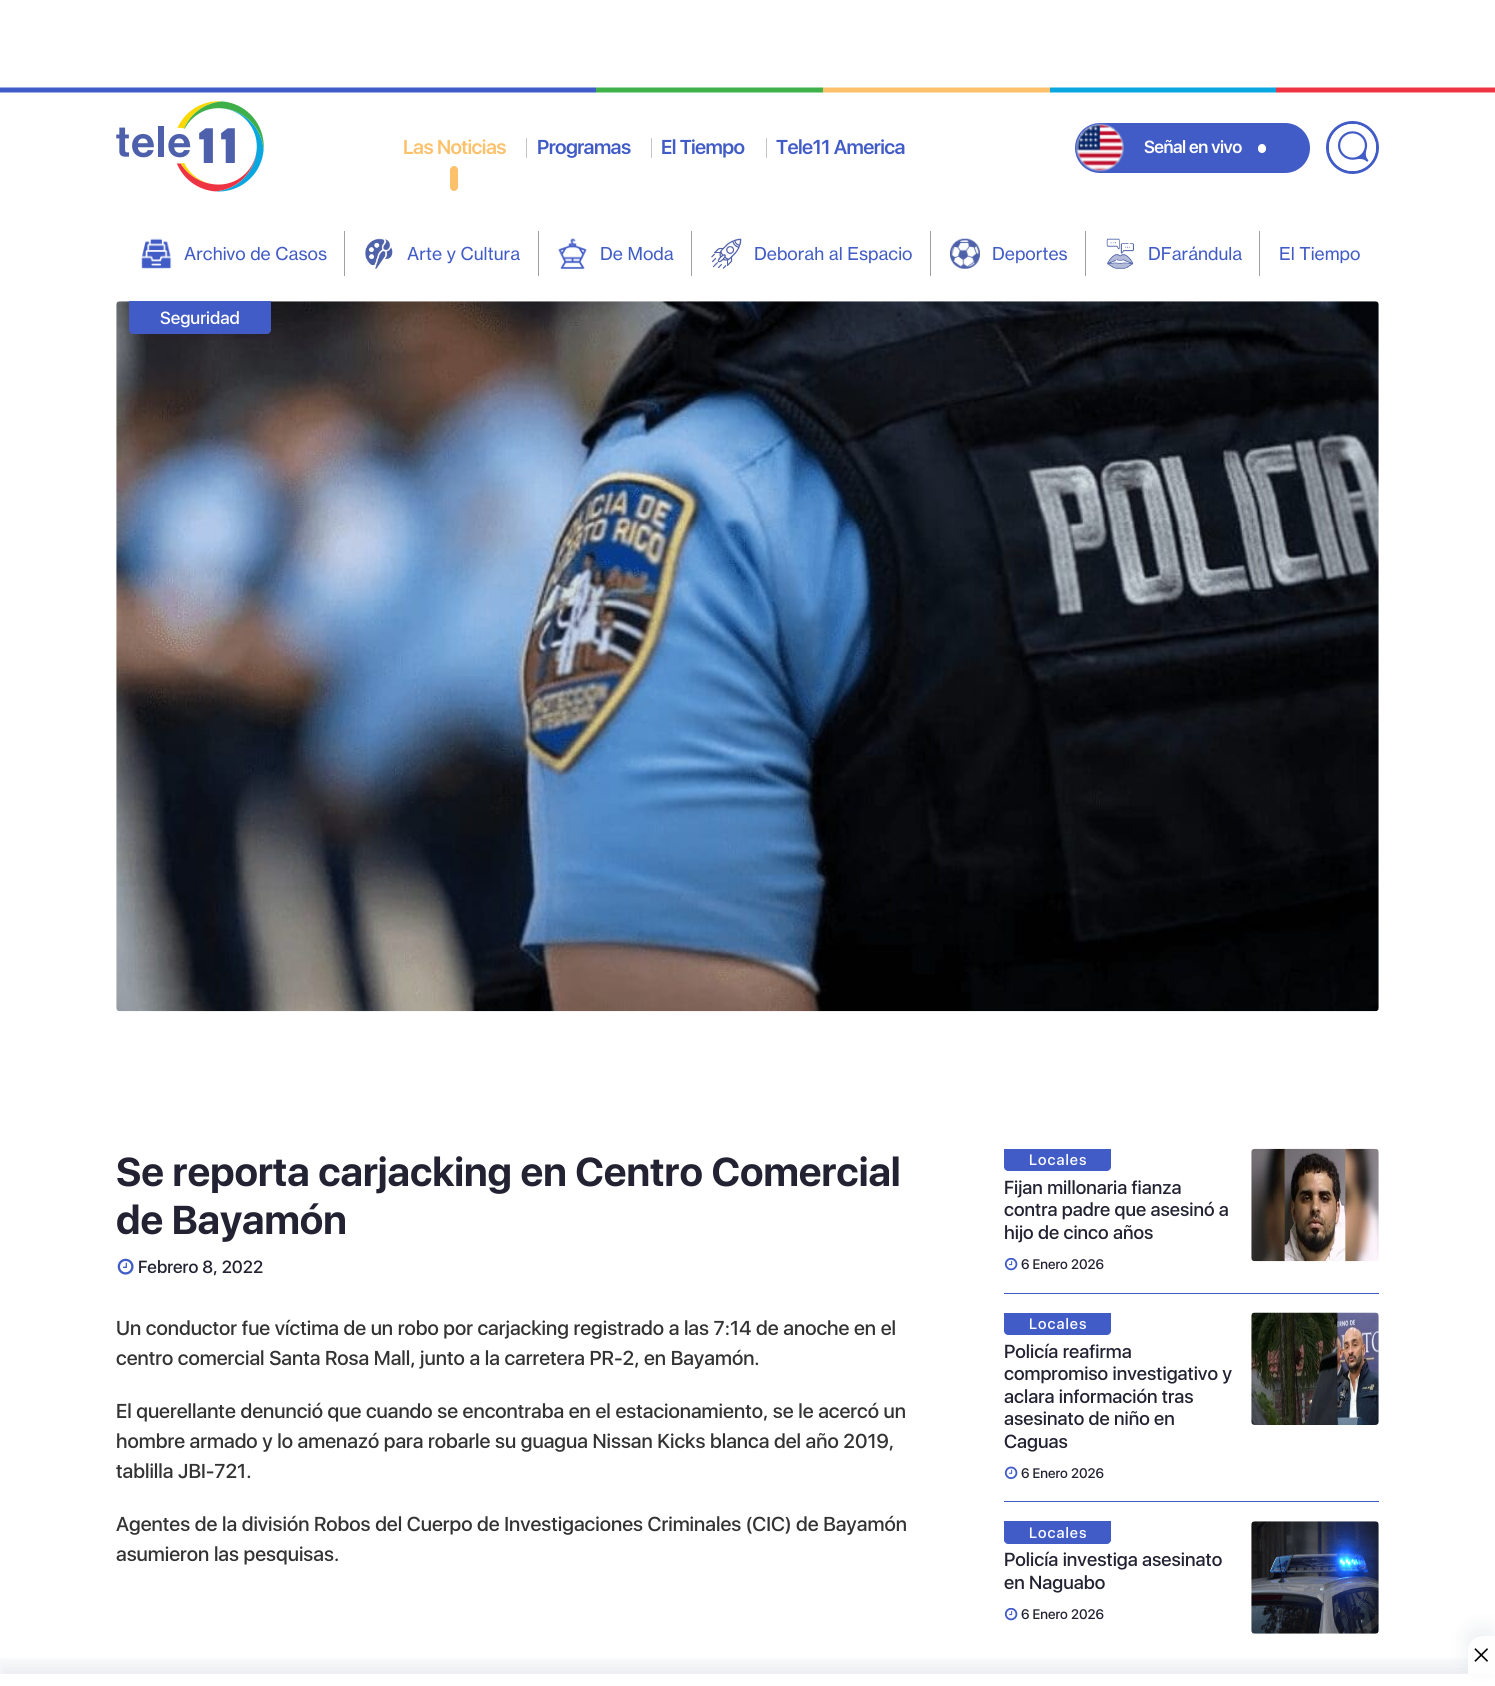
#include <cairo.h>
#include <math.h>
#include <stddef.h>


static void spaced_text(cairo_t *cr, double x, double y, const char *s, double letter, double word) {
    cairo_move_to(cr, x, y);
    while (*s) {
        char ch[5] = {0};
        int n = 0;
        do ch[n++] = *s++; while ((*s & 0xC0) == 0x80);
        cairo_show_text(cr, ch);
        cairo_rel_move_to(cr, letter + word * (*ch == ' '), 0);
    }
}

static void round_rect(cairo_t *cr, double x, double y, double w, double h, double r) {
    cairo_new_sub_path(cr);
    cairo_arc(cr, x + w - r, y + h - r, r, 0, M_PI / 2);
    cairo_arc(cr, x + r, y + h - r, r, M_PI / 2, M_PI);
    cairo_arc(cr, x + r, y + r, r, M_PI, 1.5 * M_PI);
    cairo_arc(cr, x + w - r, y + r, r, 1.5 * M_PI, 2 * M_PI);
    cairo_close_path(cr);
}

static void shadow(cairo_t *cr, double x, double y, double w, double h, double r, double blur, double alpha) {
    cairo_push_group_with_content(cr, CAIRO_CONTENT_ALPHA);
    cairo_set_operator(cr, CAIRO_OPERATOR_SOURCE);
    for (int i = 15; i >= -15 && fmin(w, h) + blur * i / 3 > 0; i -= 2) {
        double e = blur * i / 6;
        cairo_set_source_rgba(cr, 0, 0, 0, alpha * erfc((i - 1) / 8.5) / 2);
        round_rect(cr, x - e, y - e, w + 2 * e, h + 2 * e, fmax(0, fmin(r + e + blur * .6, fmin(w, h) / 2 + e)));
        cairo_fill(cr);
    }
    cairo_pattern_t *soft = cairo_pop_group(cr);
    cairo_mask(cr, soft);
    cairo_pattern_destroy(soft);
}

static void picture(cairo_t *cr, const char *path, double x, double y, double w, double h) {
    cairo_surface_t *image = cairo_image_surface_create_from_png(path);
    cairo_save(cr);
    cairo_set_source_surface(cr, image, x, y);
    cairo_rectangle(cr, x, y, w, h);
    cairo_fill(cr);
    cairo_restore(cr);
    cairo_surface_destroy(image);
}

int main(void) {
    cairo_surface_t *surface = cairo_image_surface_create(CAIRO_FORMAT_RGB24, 1495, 1686);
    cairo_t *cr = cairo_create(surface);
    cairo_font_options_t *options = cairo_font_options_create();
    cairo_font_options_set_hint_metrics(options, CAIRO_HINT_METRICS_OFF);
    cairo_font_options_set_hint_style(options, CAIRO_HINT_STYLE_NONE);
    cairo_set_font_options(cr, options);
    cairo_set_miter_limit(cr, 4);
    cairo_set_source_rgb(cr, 1, 1, 1);
    cairo_paint(cr);
    picture(cr, "img1.png", 0, 87, 1495, 6);
    picture(cr, "img2.png", 116, 101, 148, 91);
    cairo_select_font_face(cr, "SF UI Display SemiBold", CAIRO_FONT_SLANT_NORMAL, CAIRO_FONT_WEIGHT_NORMAL);
    cairo_set_font_size(cr, 20);
    cairo_set_source_rgb(cr, 0.992, 0.757, 0.42);
    spaced_text(cr, 403, 154, "Las Noticias", -0.6, 0);
    cairo_set_source_rgb(cr, 0.769, 0.769, 0.769);
    cairo_rectangle(cr, 526, 138, 1, 20);
    cairo_fill(cr);
    cairo_set_source_rgb(cr, 0.992, 0.757, 0.42);
    round_rect(cr, 450, 166, 8, 25, 4);
    cairo_fill(cr);
    cairo_set_source_rgb(cr, 0.259, 0.361, 0.78);
    spaced_text(cr, 537, 154, "Programas", -0.6, 0);
    cairo_set_source_rgb(cr, 0.769, 0.769, 0.769);
    cairo_rectangle(cr, 651, 138, 1, 20);
    cairo_fill(cr);
    cairo_set_source_rgb(cr, 0.259, 0.361, 0.78);
    spaced_text(cr, 661, 154, "El Tiempo", -0.6, 0);
    cairo_set_source_rgb(cr, 0.769, 0.769, 0.769);
    cairo_rectangle(cr, 766, 138, 1, 20);
    cairo_fill(cr);
    cairo_set_source_rgb(cr, 0.259, 0.361, 0.78);
    spaced_text(cr, 776, 154, "Tele11 America", -0.6, 0);
    round_rect(cr, 1075, 123, 235, 50, 25);
    cairo_fill(cr);
    picture(cr, "img3.png", 1076, 123, 48, 49);
    cairo_set_font_size(cr, 17.5);
    cairo_set_source_rgb(cr, 1, 1, 1);
    spaced_text(cr, 1144, 153, "Señal en vivo", -0.5, 0);
    round_rect(cr, 1258, 144, 8, 9, 4);
    cairo_fill(cr);
    cairo_arc(cr, 1352.5, 147.5, 25, 0, 2 * M_PI);
    cairo_set_source_rgb(cr, 0.259, 0.361, 0.78);
    cairo_set_line_width(cr, 3);
    cairo_stroke(cr);
    cairo_set_source_rgb(cr, 1, 1, 1);
    cairo_arc(cr, 1352.5, 147.5, 23.5, 0, 2 * M_PI);
    cairo_fill(cr);
    picture(cr, "img4.png", 1338, 131, 31, 31);
    picture(cr, "img5.png", 141, 238, 31, 31);
    cairo_select_font_face(cr, "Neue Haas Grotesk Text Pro", CAIRO_FONT_SLANT_NORMAL, CAIRO_FONT_WEIGHT_NORMAL);
    cairo_set_source_rgb(cr, 0.259, 0.361, 0.78);
    cairo_move_to(cr, 184, 260);
    cairo_show_text(cr, "Archivo de Casos");
    cairo_set_source_rgb(cr, 0.627, 0.627, 0.627);
    cairo_rectangle(cr, 344, 231, 1, 45);
    cairo_fill(cr);
    picture(cr, "img6.png", 365, 238, 28, 31);
    cairo_set_source_rgb(cr, 0.259, 0.361, 0.78);
    cairo_move_to(cr, 407, 260);
    cairo_show_text(cr, "Arte y Cultura");
    cairo_set_source_rgb(cr, 0.627, 0.627, 0.627);
    cairo_rectangle(cr, 538, 231, 1, 45);
    cairo_fill(cr);
    picture(cr, "img7.png", 558, 238, 29, 31);
    cairo_set_source_rgb(cr, 0.259, 0.361, 0.78);
    cairo_move_to(cr, 600, 260);
    cairo_show_text(cr, "De Moda");
    cairo_set_source_rgb(cr, 0.627, 0.627, 0.627);
    cairo_rectangle(cr, 691, 231, 1, 45);
    cairo_fill(cr);
    picture(cr, "img8.png", 711, 238, 31, 31);
    cairo_set_source_rgb(cr, 0.259, 0.361, 0.78);
    cairo_move_to(cr, 754, 260);
    cairo_show_text(cr, "Deborah al Espacio");
    cairo_set_source_rgb(cr, 0.627, 0.627, 0.627);
    cairo_rectangle(cr, 930, 231, 1, 45);
    cairo_fill(cr);
    picture(cr, "img9.png", 950, 238, 30, 31);
    cairo_set_source_rgb(cr, 0.259, 0.361, 0.78);
    cairo_move_to(cr, 992, 260);
    cairo_show_text(cr, "Deportes");
    cairo_set_source_rgb(cr, 0.627, 0.627, 0.627);
    cairo_rectangle(cr, 1085, 231, 1, 45);
    cairo_fill(cr);
    picture(cr, "img10.png", 1106, 238, 28, 31);
    cairo_set_source_rgb(cr, 0.259, 0.361, 0.78);
    cairo_move_to(cr, 1148, 260);
    cairo_show_text(cr, "DFarándula");
    cairo_set_source_rgb(cr, 0.627, 0.627, 0.627);
    cairo_rectangle(cr, 1259, 231, 1, 45);
    cairo_fill(cr);
    cairo_set_source_rgb(cr, 0.259, 0.361, 0.78);
    cairo_move_to(cr, 1279, 260);
    cairo_show_text(cr, "El Tiempo");
    picture(cr, "img11.png", 116, 301, 1263, 711);
    cairo_new_path(cr);
    cairo_move_to(cr, 129, 301);
    cairo_line_to(cr, 271, 301);
    cairo_line_to(cr, 271, 330);
    cairo_curve_to(cr, 271, 332, 269, 334, 267, 334);
    cairo_line_to(cr, 133, 334);
    cairo_curve_to(cr, 131, 334, 129, 332, 129, 330);
    cairo_close_path(cr);
    cairo_fill(cr);
    cairo_select_font_face(cr, "SF UI Display Medium", CAIRO_FONT_SLANT_NORMAL, CAIRO_FONT_WEIGHT_NORMAL);
    cairo_set_source_rgb(cr, 1, 1, 1);
    cairo_move_to(cr, 160, 324);
    cairo_show_text(cr, "Seguridad");
    cairo_select_font_face(cr, "SF UI Display", CAIRO_FONT_SLANT_NORMAL, CAIRO_FONT_WEIGHT_BOLD);
    cairo_set_font_size(cr, 40);
    cairo_set_source_rgb(cr, 0.133, 0.133, 0.196);
    cairo_move_to(cr, 116, 1186);
    cairo_show_text(cr, "Se reporta carjacking en Centro Comercial");
    cairo_move_to(cr, 116, 1234);
    cairo_show_text(cr, "de Bayamón");
    picture(cr, "img12.png", 117, 1258, 17, 17);
    cairo_select_font_face(cr, "SF UI Display Medium", CAIRO_FONT_SLANT_NORMAL, CAIRO_FONT_WEIGHT_NORMAL);
    cairo_set_font_size(cr, 17.5);
    cairo_move_to(cr, 138, 1273);
    cairo_show_text(cr, "Febrero 8, 2022");
    cairo_set_font_size(cr, 20);
    cairo_set_source_rgb(cr, 0.2, 0.2, 0.2);
    cairo_move_to(cr, 116, 1335);
    cairo_show_text(cr, "Un conductor fue víctima de un robo por carjacking registrado a las 7:14 de anoche en el");
    cairo_move_to(cr, 116, 1365);
    cairo_show_text(cr, "centro comercial Santa Rosa Mall, junto a la carretera PR-2, en Bayamón.");
    cairo_move_to(cr, 116, 1418);
    cairo_show_text(cr, "El querellante denunció que cuando se encontraba en el estacionamiento, se le acercó un");
    cairo_move_to(cr, 116, 1448);
    cairo_show_text(cr, "hombre armado y lo amenazó para robarle su guagua Nissan Kicks blanca del año 2019,");
    cairo_move_to(cr, 116, 1478);
    cairo_show_text(cr, "tablilla JBI-721.");
    cairo_move_to(cr, 116, 1531);
    cairo_show_text(cr, "Agentes de la división Robos del Cuerpo de Investigaciones Criminales (CIC) de Bayamón");
    cairo_move_to(cr, 116, 1561);
    cairo_show_text(cr, "asumieron las pesquisas.");
    cairo_set_source_rgb(cr, 0.259, 0.361, 0.78);
    cairo_rectangle(cr, 1004, 1293, 375, 1);
    cairo_fill(cr);
    cairo_new_path(cr);
    cairo_move_to(cr, 1004, 1149);
    cairo_line_to(cr, 1111, 1149);
    cairo_line_to(cr, 1111, 1167);
    cairo_curve_to(cr, 1111, 1169, 1109, 1171, 1107, 1171);
    cairo_line_to(cr, 1008, 1171);
    cairo_curve_to(cr, 1006, 1171, 1004, 1169, 1004, 1167);
    cairo_close_path(cr);
    cairo_fill(cr);
    cairo_set_font_size(cr, 15);
    cairo_set_source_rgb(cr, 1, 1, 1);
    spaced_text(cr, 1029, 1165, "Locales", 1, 0);
    picture(cr, "img13.png", 1251, 1148, 128, 114);
    cairo_set_font_size(cr, 18.75);
    cairo_set_source_rgb(cr, 0.133, 0.133, 0.196);
    cairo_move_to(cr, 1004, 1194);
    cairo_show_text(cr, "Fijan millonaria fianza");
    cairo_move_to(cr, 1004, 1216);
    cairo_show_text(cr, "contra padre que asesinó a");
    cairo_move_to(cr, 1004, 1239);
    cairo_show_text(cr, "hijo de cinco años");
    picture(cr, "img14.png", 1004, 1258, 14, 13);
    cairo_set_font_size(cr, 13.75);
    cairo_move_to(cr, 1021, 1269);
    cairo_show_text(cr, "6 Enero 2026");
    cairo_set_source_rgb(cr, 0.259, 0.361, 0.78);
    cairo_rectangle(cr, 1004, 1501, 375, 1);
    cairo_fill(cr);
    cairo_new_path(cr);
    cairo_move_to(cr, 1004, 1313);
    cairo_line_to(cr, 1111, 1313);
    cairo_line_to(cr, 1111, 1331);
    cairo_curve_to(cr, 1111, 1333, 1109, 1335, 1107, 1335);
    cairo_line_to(cr, 1008, 1335);
    cairo_curve_to(cr, 1006, 1335, 1004, 1333, 1004, 1331);
    cairo_close_path(cr);
    cairo_fill(cr);
    cairo_set_font_size(cr, 15);
    cairo_set_source_rgb(cr, 1, 1, 1);
    spaced_text(cr, 1029, 1329, "Locales", 1, 0);
    picture(cr, "img15.png", 1251, 1312, 128, 113);
    cairo_set_font_size(cr, 18.75);
    cairo_set_source_rgb(cr, 0.133, 0.133, 0.196);
    cairo_move_to(cr, 1004, 1358);
    cairo_show_text(cr, "Policía reafirma");
    cairo_move_to(cr, 1004, 1380);
    cairo_show_text(cr, "compromiso investigativo y");
    cairo_move_to(cr, 1004, 1403);
    cairo_show_text(cr, "aclara información tras");
    cairo_move_to(cr, 1004, 1425);
    cairo_show_text(cr, "asesinato de niño en");
    cairo_move_to(cr, 1004, 1448);
    cairo_show_text(cr, "Caguas");
    picture(cr, "img16.png", 1004, 1466, 14, 14);
    cairo_set_font_size(cr, 13.75);
    cairo_move_to(cr, 1021, 1478);
    cairo_show_text(cr, "6 Enero 2026");
    cairo_set_source_rgb(cr, 0.259, 0.361, 0.78);
    cairo_new_path(cr);
    cairo_move_to(cr, 1004, 1521);
    cairo_line_to(cr, 1111, 1521);
    cairo_line_to(cr, 1111, 1540);
    cairo_curve_to(cr, 1111, 1542, 1109, 1544, 1107, 1544);
    cairo_line_to(cr, 1008, 1544);
    cairo_curve_to(cr, 1006, 1544, 1004, 1542, 1004, 1540);
    cairo_close_path(cr);
    cairo_fill(cr);
    cairo_set_font_size(cr, 15);
    cairo_set_source_rgb(cr, 1, 1, 1);
    spaced_text(cr, 1029, 1538, "Locales", 1, 0);
    picture(cr, "img17.png", 1251, 1521, 128, 113);
    cairo_set_font_size(cr, 18.75);
    cairo_set_source_rgb(cr, 0.133, 0.133, 0.196);
    cairo_move_to(cr, 1004, 1566);
    cairo_show_text(cr, "Policía investiga asesinato");
    cairo_move_to(cr, 1004, 1589);
    cairo_show_text(cr, "en Naguabo");
    picture(cr, "img14.png", 1004, 1608, 14, 13);
    cairo_set_font_size(cr, 13.75);
    cairo_move_to(cr, 1021, 1619);
    cairo_show_text(cr, "6 Enero 2026");
    cairo_save(cr);
    cairo_rectangle(cr, 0, 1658, 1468, 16);
    cairo_clip(cr);
    cairo_set_source_rgb(cr, 0.035, 0.125, 0.298);
    shadow(cr, 0, 1666, 1495, 13, 0, 11, 0.1);
    cairo_restore(cr);
    cairo_set_source_rgb(cr, 0.035, 0.125, 0.298);
    shadow(cr, 1468, 1629, 27, 37, 15, 11, 0.08);
    cairo_set_source_rgb(cr, 0.996, 0.996, 0.996);
    cairo_new_path(cr);
    cairo_move_to(cr, 1483, 1636);
    cairo_line_to(cr, 1495, 1636);
    cairo_line_to(cr, 1495, 1674);
    cairo_line_to(cr, 1468, 1674);
    cairo_line_to(cr, 1468, 1651);
    cairo_curve_to(cr, 1468, 1642.5, 1474.5, 1636, 1483, 1636);
    cairo_close_path(cr);
    cairo_fill(cr);
    picture(cr, "img18.png", 1474, 1648, 14, 14);
    cairo_surface_write_to_png(surface, "page.png");
    cairo_font_options_destroy(options);
    cairo_destroy(cr);
    cairo_surface_destroy(surface);
    return 0;
}
